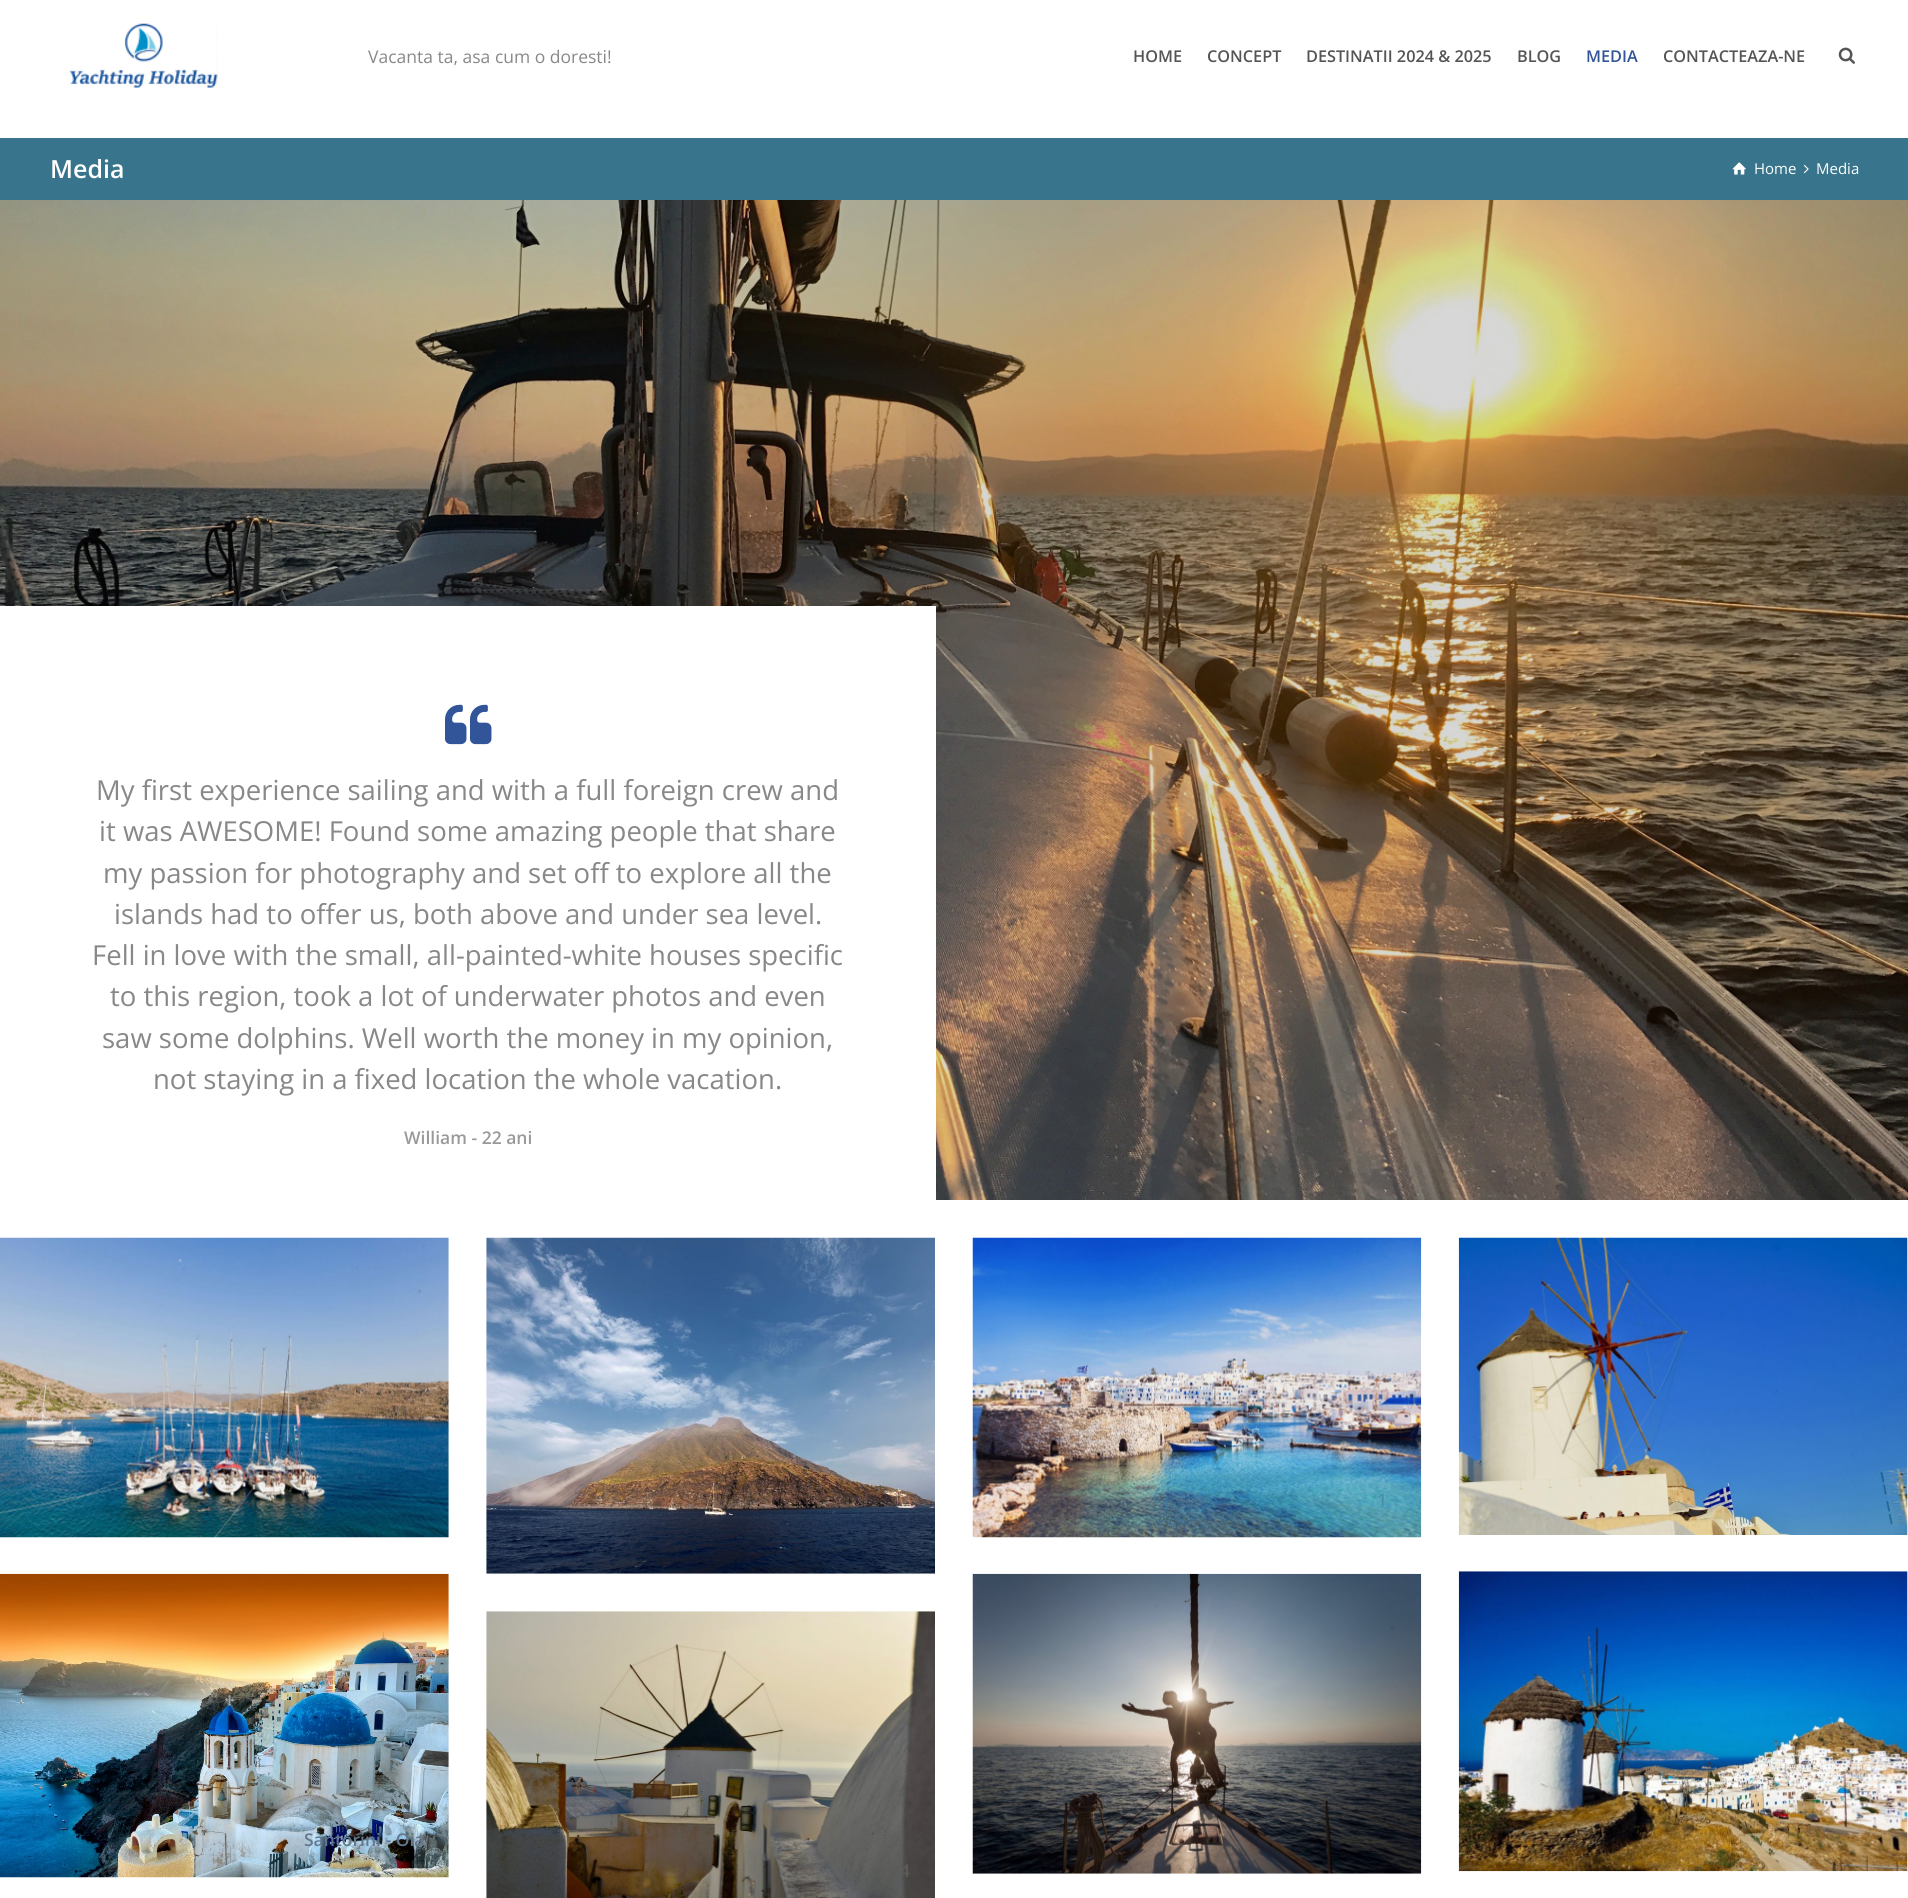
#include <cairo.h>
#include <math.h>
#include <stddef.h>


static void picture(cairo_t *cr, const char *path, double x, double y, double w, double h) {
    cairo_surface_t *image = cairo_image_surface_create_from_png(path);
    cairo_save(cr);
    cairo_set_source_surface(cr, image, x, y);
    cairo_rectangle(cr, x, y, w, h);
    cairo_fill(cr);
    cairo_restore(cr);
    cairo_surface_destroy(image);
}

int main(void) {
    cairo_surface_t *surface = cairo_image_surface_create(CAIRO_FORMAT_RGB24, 1908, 1898);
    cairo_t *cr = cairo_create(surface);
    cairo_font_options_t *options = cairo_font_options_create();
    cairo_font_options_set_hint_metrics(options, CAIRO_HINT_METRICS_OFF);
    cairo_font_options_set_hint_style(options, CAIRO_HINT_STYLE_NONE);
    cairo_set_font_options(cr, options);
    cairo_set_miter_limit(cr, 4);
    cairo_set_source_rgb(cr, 1, 1, 1);
    cairo_paint(cr);
    picture(cr, "img1.png", 69, 23, 149, 65);
    cairo_select_font_face(cr, "Open Sans", CAIRO_FONT_SLANT_NORMAL, CAIRO_FONT_WEIGHT_NORMAL);
    cairo_set_font_size(cr, 17.5);
    cairo_set_source_rgb(cr, 0.533, 0.533, 0.533);
    cairo_move_to(cr, 368, 63);
    cairo_show_text(cr, "Vacanta ta, asa cum o doresti!");
    cairo_select_font_face(cr, "Open Sans SemiBold", CAIRO_FONT_SLANT_NORMAL, CAIRO_FONT_WEIGHT_NORMAL);
    cairo_set_font_size(cr, 16.25);
    cairo_set_source_rgb(cr, 0.333, 0.333, 0.333);
    cairo_move_to(cr, 1133, 62);
    cairo_show_text(cr, "HOME");
    cairo_move_to(cr, 1207, 62);
    cairo_show_text(cr, "CONCEPT");
    cairo_move_to(cr, 1306, 62);
    cairo_show_text(cr, "DESTINATII 2024 & 2025");
    cairo_move_to(cr, 1517, 62);
    cairo_show_text(cr, "BLOG");
    cairo_set_source_rgb(cr, 0.196, 0.329, 0.596);
    cairo_move_to(cr, 1586, 62);
    cairo_show_text(cr, "MEDIA");
    cairo_set_source_rgb(cr, 0.333, 0.333, 0.333);
    cairo_move_to(cr, 1663, 62);
    cairo_show_text(cr, "CONTACTEAZA-NE");
    picture(cr, "img2.png", 1838, 47, 17, 17);
    cairo_set_source_rgb(cr, 0.22, 0.459, 0.549);
    cairo_rectangle(cr, 0, 138, 1908, 62);
    cairo_fill(cr);
    cairo_set_font_size(cr, 25);
    cairo_set_source_rgb(cr, 1, 1, 1);
    cairo_move_to(cr, 50, 178);
    cairo_show_text(cr, "Media");
    picture(cr, "img3.png", 1732, 162, 14, 13);
    cairo_select_font_face(cr, "Open Sans", CAIRO_FONT_SLANT_NORMAL, CAIRO_FONT_WEIGHT_NORMAL);
    cairo_set_font_size(cr, 15);
    cairo_move_to(cr, 1754, 174);
    cairo_show_text(cr, "Home");
    picture(cr, "img4.png", 1803, 164, 6, 10);
    cairo_move_to(cr, 1816, 174);
    cairo_show_text(cr, "Media");
    picture(cr, "img5.png", 0, 200, 1908, 1000);
    cairo_rectangle(cr, 0, 606, 936, 594);
    cairo_fill(cr);
    picture(cr, "img6.png", 445, 704, 47, 41);
    cairo_set_font_size(cr, 27.5);
    cairo_set_source_rgb(cr, 0.533, 0.533, 0.533);
    cairo_move_to(cr, 96, 800);
    cairo_show_text(cr, "My first experience sailing and with a full foreign crew and");
    cairo_move_to(cr, 99, 841);
    cairo_show_text(cr, "it was AWESOME! Found some amazing people that share");
    cairo_move_to(cr, 103, 883);
    cairo_show_text(cr, "my passion for photography and set off to explore all the");
    cairo_move_to(cr, 114, 924);
    cairo_show_text(cr, "islands had to offer us, both above and under sea level.");
    cairo_move_to(cr, 92, 965);
    cairo_show_text(cr, "Fell in love with the small, all-painted-white houses specific");
    cairo_move_to(cr, 110, 1006);
    cairo_show_text(cr, "to this region, took a lot of underwater photos and even");
    cairo_move_to(cr, 102, 1048);
    cairo_show_text(cr, "saw some dolphins. Well worth the money in my opinion,");
    cairo_move_to(cr, 153, 1089);
    cairo_show_text(cr, "not staying in a fixed location the whole vacation.");
    cairo_select_font_face(cr, "Open Sans SemiBold", CAIRO_FONT_SLANT_NORMAL, CAIRO_FONT_WEIGHT_NORMAL);
    cairo_set_font_size(cr, 17.5);
    cairo_set_source_rgb(cr, 0.6, 0.6, 0.6);
    cairo_move_to(cr, 404, 1144);
    cairo_show_text(cr, "William - 22 ani");
    picture(cr, "img7.png", 486, 1237, 449, 337);
    picture(cr, "img8.png", 972, 1237, 450, 301);
    cairo_set_source_rgb(cr, 0.267, 0.561, 0.675);
    cairo_move_to(cr, 1377, 1506);
    cairo_show_text(cr, "1");
    picture(cr, "img9.png", 1458, 1237, 450, 298);
    picture(cr, "img10.png", 0, 1237, 449, 301);
    cairo_set_source_rgb(cr, 0.161, 0.318, 0.392);
    cairo_move_to(cr, 327, 1506);
    cairo_show_text(cr, "_");
    picture(cr, "img11.png", 0, 1573, 449, 305);
    cairo_set_source_rgb(cr, 0.388, 0.471, 0.557);
    cairo_move_to(cr, 304, 1846);
    cairo_show_text(cr, "Santorini - Oia");
    picture(cr, "img12.png", 972, 1573, 450, 301);
    picture(cr, "img13.png", 1458, 1571, 450, 301);
    picture(cr, "img14.png", 486, 1611, 449, 287);
    cairo_set_source_rgb(cr, 0.357, 0.357, 0.353);
    cairo_move_to(cr, 900, 1877);
    cairo_show_text(cr, "4");
    cairo_surface_write_to_png(surface, "page.png");
    cairo_font_options_destroy(options);
    cairo_destroy(cr);
    cairo_surface_destroy(surface);
    return 0;
}
